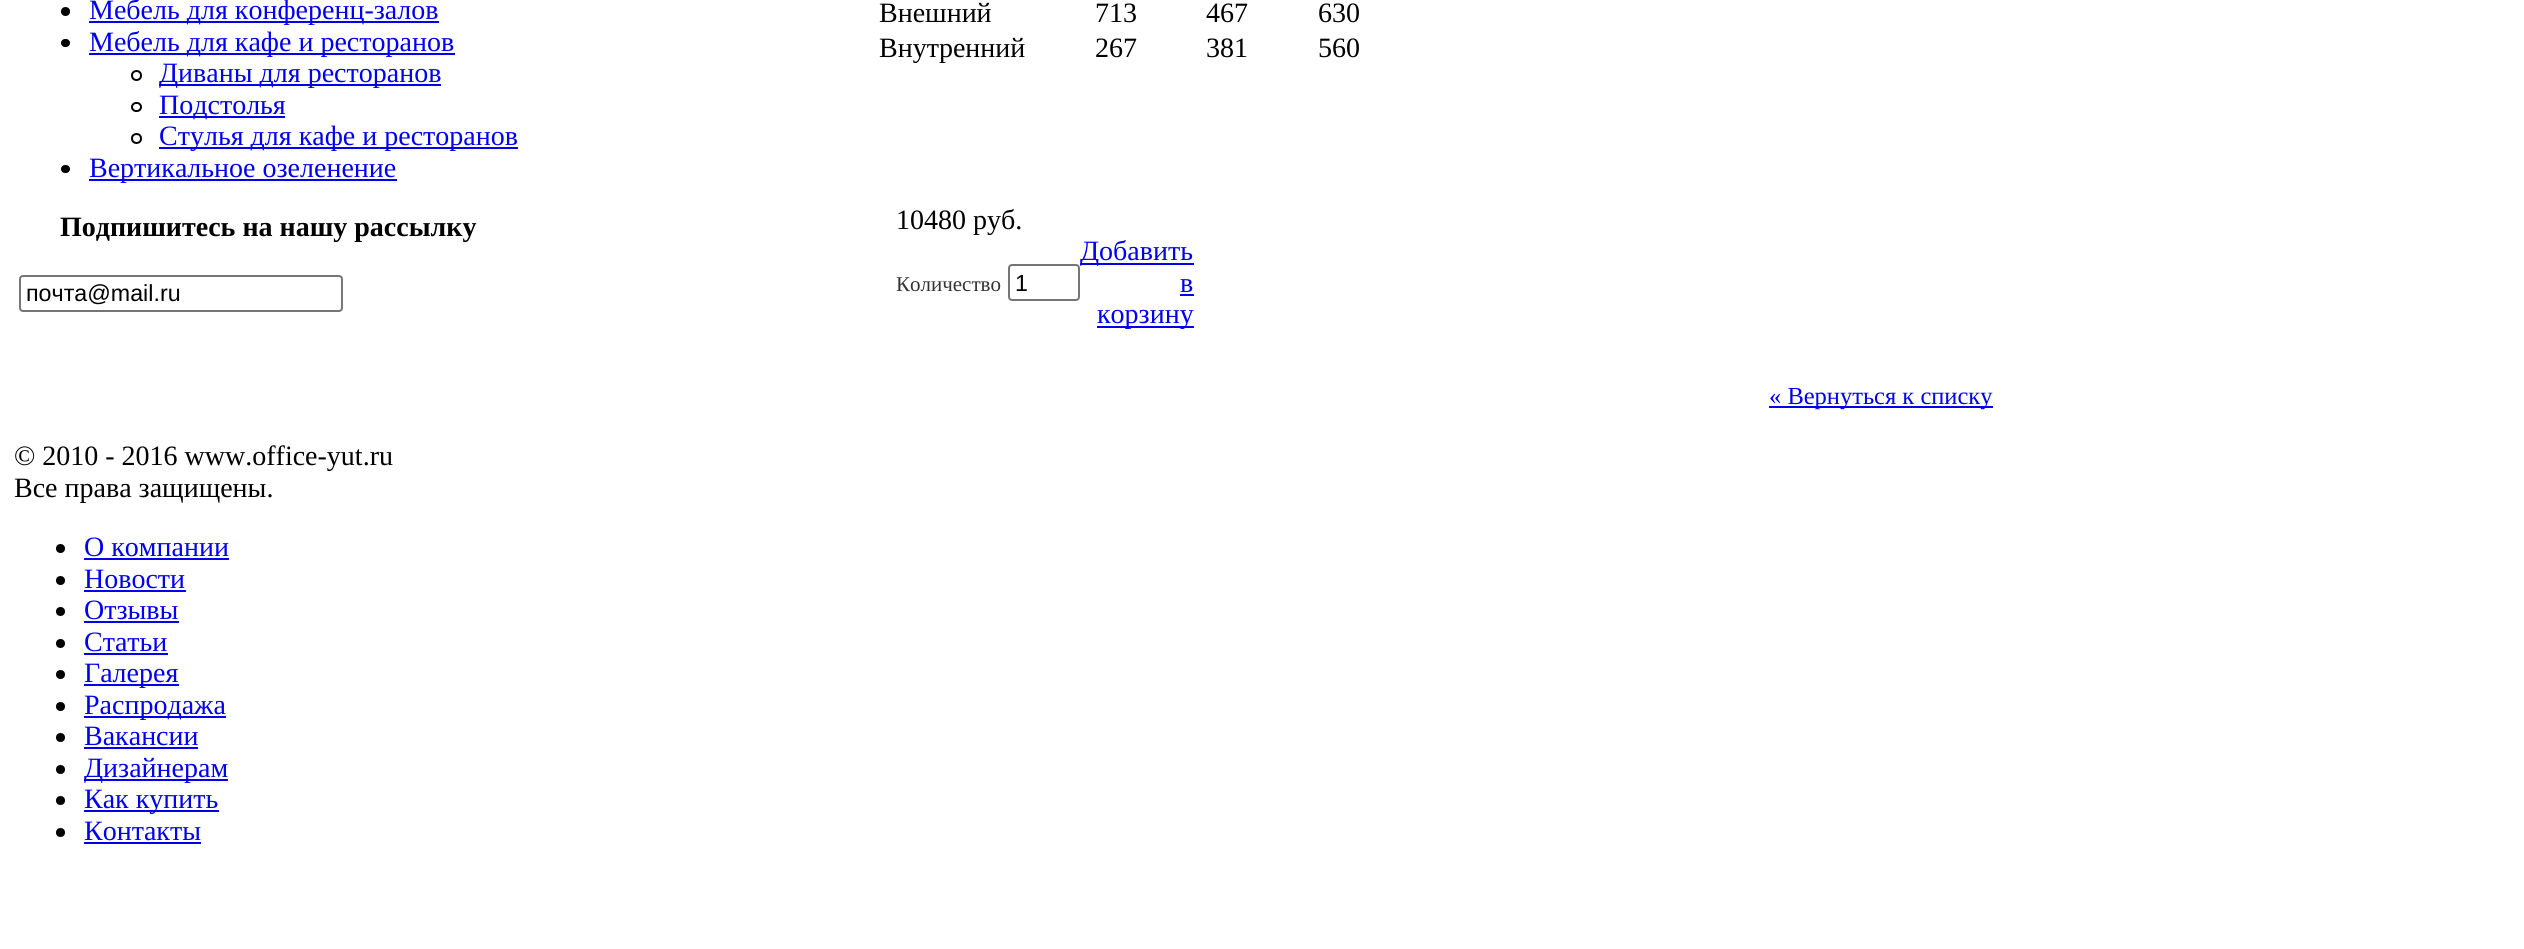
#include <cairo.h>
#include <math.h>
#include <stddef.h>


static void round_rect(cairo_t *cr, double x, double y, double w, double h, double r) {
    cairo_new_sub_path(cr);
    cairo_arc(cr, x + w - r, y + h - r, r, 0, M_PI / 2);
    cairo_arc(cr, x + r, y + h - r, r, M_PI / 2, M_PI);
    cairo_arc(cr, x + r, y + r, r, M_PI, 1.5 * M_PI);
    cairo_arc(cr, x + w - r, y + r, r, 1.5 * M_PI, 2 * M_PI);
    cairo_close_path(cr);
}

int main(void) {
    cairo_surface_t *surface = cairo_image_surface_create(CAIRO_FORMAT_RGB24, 2524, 949);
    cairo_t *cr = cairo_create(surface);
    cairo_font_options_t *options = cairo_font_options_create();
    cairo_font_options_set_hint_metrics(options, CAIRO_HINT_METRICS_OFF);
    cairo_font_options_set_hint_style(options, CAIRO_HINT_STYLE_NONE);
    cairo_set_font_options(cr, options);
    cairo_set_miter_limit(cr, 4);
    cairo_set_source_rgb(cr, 1, 1, 1);
    cairo_paint(cr);
    cairo_set_source_rgb(cr, 0, 0, 0);
    cairo_arc(cr, 65.5, 11.5, 4.5, 0, 2 * M_PI);
    cairo_fill(cr);
    cairo_set_source_rgb(cr, 0, 0, 0.933);
    cairo_rectangle(cr, 89, 21, 350, 2);
    cairo_fill(cr);
    cairo_select_font_face(cr, "Liberation Serif", CAIRO_FONT_SLANT_NORMAL, CAIRO_FONT_WEIGHT_NORMAL);
    cairo_set_font_size(cr, 28);
    cairo_move_to(cr, 89, 19);
    cairo_show_text(cr, "Мебель для конференц-залов");
    cairo_set_source_rgb(cr, 0, 0, 0);
    round_rect(cr, 61, 39, 9, 8, 4);
    cairo_fill(cr);
    cairo_set_source_rgb(cr, 0, 0, 0.933);
    cairo_rectangle(cr, 89, 53, 366, 2);
    cairo_fill(cr);
    cairo_move_to(cr, 89, 51);
    cairo_show_text(cr, "Мебель для кафе и ресторанов");
    cairo_new_path(cr);
    cairo_arc(cr, 136.5, 75.5, 4.5, 0, 2 * M_PI);
    cairo_set_source_rgb(cr, 0, 0, 0);
    cairo_stroke(cr);
    cairo_set_source_rgb(cr, 0, 0, 0.933);
    cairo_rectangle(cr, 159, 84, 282, 2);
    cairo_fill(cr);
    cairo_move_to(cr, 159, 82);
    cairo_show_text(cr, "Диваны для ресторанов");
    round_rect(cr, 132, 103, 9, 8, 4);
    cairo_set_source_rgb(cr, 0, 0, 0);
    cairo_stroke(cr);
    cairo_set_source_rgb(cr, 0, 0, 0.933);
    cairo_rectangle(cr, 159, 116, 126, 2);
    cairo_fill(cr);
    cairo_move_to(cr, 159, 114);
    cairo_show_text(cr, "Подстолья");
    cairo_new_path(cr);
    cairo_arc(cr, 136.5, 138.5, 4.5, 0, 2 * M_PI);
    cairo_set_source_rgb(cr, 0, 0, 0);
    cairo_stroke(cr);
    cairo_set_source_rgb(cr, 0, 0, 0.933);
    cairo_rectangle(cr, 159, 147, 359, 2);
    cairo_fill(cr);
    cairo_move_to(cr, 159, 145);
    cairo_show_text(cr, "Стулья для кафе и ресторанов");
    cairo_set_source_rgb(cr, 0, 0, 0);
    round_rect(cr, 61, 165, 9, 8, 4);
    cairo_fill(cr);
    cairo_set_source_rgb(cr, 0, 0, 0.933);
    cairo_rectangle(cr, 89, 179, 308, 2);
    cairo_fill(cr);
    cairo_move_to(cr, 89, 177);
    cairo_show_text(cr, "Вертикальное озеленение");
    cairo_select_font_face(cr, "Liberation Serif", CAIRO_FONT_SLANT_NORMAL, CAIRO_FONT_WEIGHT_BOLD);
    cairo_set_source_rgb(cr, 0, 0, 0);
    cairo_move_to(cr, 60, 236);
    cairo_show_text(cr, "Подпишитесь на нашу рассылку");
    round_rect(cr, 20, 276, 322, 35, 3);
    cairo_set_source_rgb(cr, 0.463, 0.463, 0.463);
    cairo_stroke(cr);
    cairo_select_font_face(cr, "Liberation Sans", CAIRO_FONT_SLANT_NORMAL, CAIRO_FONT_WEIGHT_NORMAL);
    cairo_set_font_size(cr, 23.25);
    cairo_set_source_rgb(cr, 0, 0, 0);
    cairo_move_to(cr, 26, 301);
    cairo_show_text(cr, "почта@mail.ru");
    cairo_select_font_face(cr, "Liberation Serif", CAIRO_FONT_SLANT_NORMAL, CAIRO_FONT_WEIGHT_NORMAL);
    cairo_set_font_size(cr, 28);
    cairo_move_to(cr, 879, 22);
    cairo_show_text(cr, "Внешний");
    cairo_move_to(cr, 1095, 22);
    cairo_show_text(cr, "713");
    cairo_move_to(cr, 1206, 22);
    cairo_show_text(cr, "467");
    cairo_move_to(cr, 1318, 22);
    cairo_show_text(cr, "630");
    cairo_move_to(cr, 879, 57);
    cairo_show_text(cr, "Внутренний");
    cairo_move_to(cr, 1095, 57);
    cairo_show_text(cr, "267");
    cairo_move_to(cr, 1206, 57);
    cairo_show_text(cr, "381");
    cairo_move_to(cr, 1318, 57);
    cairo_show_text(cr, "560");
    cairo_move_to(cr, 896, 229);
    cairo_show_text(cr, "10480 pуб.");
    cairo_set_font_size(cr, 21);
    cairo_set_source_rgb(cr, 0.2, 0.2, 0.2);
    cairo_move_to(cr, 896, 291);
    cairo_show_text(cr, "Количество");
    round_rect(cr, 1009, 265, 70, 35, 3);
    cairo_set_source_rgb(cr, 0.463, 0.463, 0.463);
    cairo_stroke(cr);
    cairo_select_font_face(cr, "Liberation Sans", CAIRO_FONT_SLANT_NORMAL, CAIRO_FONT_WEIGHT_NORMAL);
    cairo_set_font_size(cr, 23.25);
    cairo_set_source_rgb(cr, 0, 0, 0);
    cairo_move_to(cr, 1015, 291);
    cairo_show_text(cr, "1");
    cairo_set_source_rgb(cr, 0, 0, 0.933);
    cairo_rectangle(cr, 1080, 263, 114, 2);
    cairo_fill(cr);
    cairo_select_font_face(cr, "Liberation Serif", CAIRO_FONT_SLANT_NORMAL, CAIRO_FONT_WEIGHT_NORMAL);
    cairo_set_font_size(cr, 28);
    cairo_move_to(cr, 1080, 260);
    cairo_show_text(cr, "Добавить");
    cairo_move_to(cr, 1180, 292);
    cairo_show_text(cr, "в");
    cairo_rectangle(cr, 1180, 294, 14, 2);
    cairo_fill(cr);
    cairo_rectangle(cr, 1097, 326, 97, 2);
    cairo_fill(cr);
    cairo_move_to(cr, 1097, 323);
    cairo_show_text(cr, "корзину");
    cairo_rectangle(cr, 1769, 406, 224, 2);
    cairo_fill(cr);
    cairo_set_font_size(cr, 24.5);
    cairo_move_to(cr, 1769, 404);
    cairo_show_text(cr, "« Вернуться к списку");
    cairo_set_font_size(cr, 28);
    cairo_set_source_rgb(cr, 0, 0, 0);
    cairo_move_to(cr, 14, 465);
    cairo_show_text(cr, "© 2010 - 2016 www.office-yut.ru");
    cairo_move_to(cr, 14, 497);
    cairo_show_text(cr, "Все права защищены.");
    cairo_new_path(cr);
    cairo_arc(cr, 60.5, 548.5, 4.5, 0, 2 * M_PI);
    cairo_fill(cr);
    cairo_set_source_rgb(cr, 0, 0, 0.933);
    cairo_move_to(cr, 84, 556);
    cairo_show_text(cr, "О компании");
    cairo_rectangle(cr, 84, 558, 145, 2);
    cairo_fill(cr);
    cairo_set_source_rgb(cr, 0, 0, 0);
    cairo_arc(cr, 60.5, 580.5, 4.5, 0, 2 * M_PI);
    cairo_fill(cr);
    cairo_set_source_rgb(cr, 0, 0, 0.933);
    cairo_move_to(cr, 84, 588);
    cairo_show_text(cr, "Новости");
    cairo_rectangle(cr, 84, 590, 102, 2);
    cairo_fill(cr);
    cairo_set_source_rgb(cr, 0, 0, 0);
    cairo_arc(cr, 60.5, 611.5, 4.5, 0, 2 * M_PI);
    cairo_fill(cr);
    cairo_set_source_rgb(cr, 0, 0, 0.933);
    cairo_move_to(cr, 84, 619);
    cairo_show_text(cr, "Отзывы");
    cairo_rectangle(cr, 84, 621, 95, 2);
    cairo_fill(cr);
    cairo_set_source_rgb(cr, 0, 0, 0);
    cairo_arc(cr, 60.5, 643.5, 4.5, 0, 2 * M_PI);
    cairo_fill(cr);
    cairo_set_source_rgb(cr, 0, 0, 0.933);
    cairo_move_to(cr, 84, 651);
    cairo_show_text(cr, "Статьи");
    cairo_rectangle(cr, 84, 653, 84, 2);
    cairo_fill(cr);
    cairo_set_source_rgb(cr, 0, 0, 0);
    cairo_arc(cr, 60.5, 674.5, 4.5, 0, 2 * M_PI);
    cairo_fill(cr);
    cairo_set_source_rgb(cr, 0, 0, 0.933);
    cairo_rectangle(cr, 84, 684, 95, 2);
    cairo_fill(cr);
    cairo_move_to(cr, 84, 682);
    cairo_show_text(cr, "Галерея");
    cairo_set_source_rgb(cr, 0, 0, 0);
    cairo_new_path(cr);
    cairo_arc(cr, 60.5, 706.5, 4.5, 0, 2 * M_PI);
    cairo_fill(cr);
    cairo_set_source_rgb(cr, 0, 0, 0.933);
    cairo_rectangle(cr, 84, 716, 142, 2);
    cairo_fill(cr);
    cairo_move_to(cr, 84, 714);
    cairo_show_text(cr, "Распродажа");
    cairo_set_source_rgb(cr, 0, 0, 0);
    cairo_new_path(cr);
    cairo_arc(cr, 60.5, 737.5, 4.5, 0, 2 * M_PI);
    cairo_fill(cr);
    cairo_set_source_rgb(cr, 0, 0, 0.933);
    cairo_move_to(cr, 84, 745);
    cairo_show_text(cr, "Вакансии");
    cairo_rectangle(cr, 84, 747, 114, 2);
    cairo_fill(cr);
    cairo_set_source_rgb(cr, 0, 0, 0);
    cairo_arc(cr, 60.5, 769.5, 4.5, 0, 2 * M_PI);
    cairo_fill(cr);
    cairo_set_source_rgb(cr, 0, 0, 0.933);
    cairo_rectangle(cr, 84, 779, 144, 2);
    cairo_fill(cr);
    cairo_move_to(cr, 84, 777);
    cairo_show_text(cr, "Дизайнерам");
    cairo_set_source_rgb(cr, 0, 0, 0);
    cairo_new_path(cr);
    cairo_arc(cr, 60.5, 800.5, 4.5, 0, 2 * M_PI);
    cairo_fill(cr);
    cairo_set_source_rgb(cr, 0, 0, 0.933);
    cairo_rectangle(cr, 84, 810, 135, 2);
    cairo_fill(cr);
    cairo_move_to(cr, 84, 808);
    cairo_show_text(cr, "Как купить");
    cairo_set_source_rgb(cr, 0, 0, 0);
    cairo_new_path(cr);
    cairo_arc(cr, 60.5, 832.5, 4.5, 0, 2 * M_PI);
    cairo_fill(cr);
    cairo_set_source_rgb(cr, 0, 0, 0.933);
    cairo_move_to(cr, 84, 840);
    cairo_show_text(cr, "Контакты");
    cairo_rectangle(cr, 84, 842, 117, 2);
    cairo_fill(cr);
    cairo_surface_write_to_png(surface, "page.png");
    cairo_font_options_destroy(options);
    cairo_destroy(cr);
    cairo_surface_destroy(surface);
    return 0;
}
